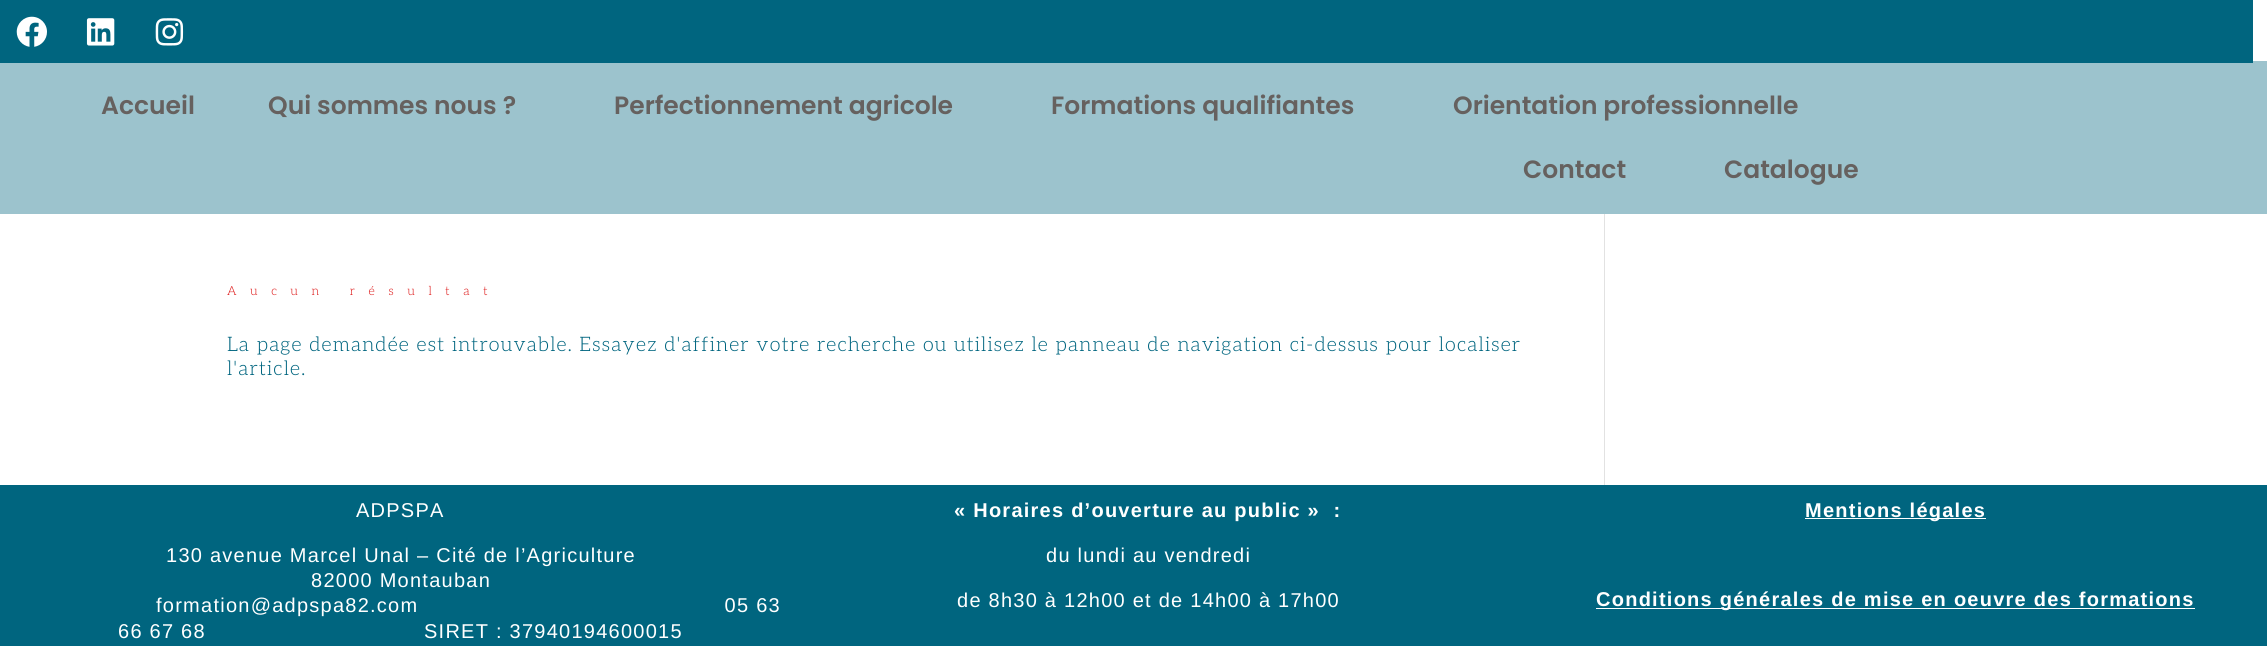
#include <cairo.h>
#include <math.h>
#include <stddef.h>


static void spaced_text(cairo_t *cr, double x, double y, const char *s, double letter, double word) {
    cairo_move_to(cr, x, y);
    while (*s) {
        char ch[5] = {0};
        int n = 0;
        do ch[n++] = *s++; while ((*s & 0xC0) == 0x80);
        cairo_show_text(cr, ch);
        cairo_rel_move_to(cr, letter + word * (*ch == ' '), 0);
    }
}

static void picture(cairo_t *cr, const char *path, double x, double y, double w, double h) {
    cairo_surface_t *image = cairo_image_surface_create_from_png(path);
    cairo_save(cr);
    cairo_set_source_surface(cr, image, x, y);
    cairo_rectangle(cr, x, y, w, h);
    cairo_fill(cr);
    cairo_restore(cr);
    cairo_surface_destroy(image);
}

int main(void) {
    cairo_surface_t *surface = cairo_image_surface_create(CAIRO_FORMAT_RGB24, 2267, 646);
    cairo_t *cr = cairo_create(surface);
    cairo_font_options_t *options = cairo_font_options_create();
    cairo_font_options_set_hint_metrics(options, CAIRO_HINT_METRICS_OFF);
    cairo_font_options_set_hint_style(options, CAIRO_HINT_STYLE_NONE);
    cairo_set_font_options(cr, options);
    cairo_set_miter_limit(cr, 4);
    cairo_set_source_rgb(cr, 1, 1, 1);
    cairo_paint(cr);
    cairo_set_source_rgb(cr, 0.612, 0.765, 0.804);
    cairo_rectangle(cr, 0, 61, 2267, 153);
    cairo_fill(cr);
    cairo_set_source_rgb(cr, 0, 0.396, 0.498);
    cairo_rectangle(cr, 0, 0, 2253, 63);
    cairo_fill(cr);
    picture(cr, "img1.png", 16, 16, 31, 31);
    picture(cr, "img2.png", 86, 18, 29, 28);
    picture(cr, "img3.png", 155, 18, 29, 28);
    cairo_select_font_face(cr, "Poppins SemiBold", CAIRO_FONT_SLANT_NORMAL, CAIRO_FONT_WEIGHT_NORMAL);
    cairo_set_font_size(cr, 25);
    cairo_set_source_rgb(cr, 0.4, 0.38, 0.373);
    cairo_move_to(cr, 101, 114);
    cairo_show_text(cr, "Accueil");
    cairo_move_to(cr, 268, 114);
    cairo_show_text(cr, "Qui sommes nous ?");
    cairo_move_to(cr, 614, 114);
    cairo_show_text(cr, "Perfectionnement agricole");
    cairo_move_to(cr, 1051, 114);
    cairo_show_text(cr, "Formations qualifiantes");
    cairo_move_to(cr, 1453, 114);
    cairo_show_text(cr, "Orientation professionnelle");
    cairo_move_to(cr, 1523, 178);
    cairo_show_text(cr, "Contact");
    cairo_move_to(cr, 1724, 178);
    cairo_show_text(cr, "Catalogue");
    cairo_select_font_face(cr, "Aleo Light", CAIRO_FONT_SLANT_NORMAL, CAIRO_FONT_WEIGHT_NORMAL);
    cairo_set_font_size(cr, 12.5);
    cairo_set_source_rgb(cr, 0.867, 0.086, 0.086);
    spaced_text(cr, 227, 295, "Aucun résultat", 13.75, 0);
    cairo_set_font_size(cr, 20);
    cairo_set_source_rgb(cr, 0, 0.396, 0.498);
    spaced_text(cr, 227, 351, "La page demandée est introuvable. Essayez d'affiner votre recherche ou utilisez le panneau de navigation ci-dessus pour localiser", 1.25, 0);
    spaced_text(cr, 227, 375, "l'article.", 1.25, 0);
    cairo_set_source_rgb(cr, 0.886, 0.886, 0.886);
    cairo_rectangle(cr, 1604, 214, 1, 271);
    cairo_fill(cr);
    cairo_set_source_rgb(cr, 0, 0.396, 0.498);
    cairo_rectangle(cr, 0, 485, 2267, 161);
    cairo_fill(cr);
    cairo_select_font_face(cr, "Liberation Sans", CAIRO_FONT_SLANT_NORMAL, CAIRO_FONT_WEIGHT_NORMAL);
    cairo_set_source_rgb(cr, 1, 1, 1);
    spaced_text(cr, 356, 517, "ADPSPA", 1.25, 0);
    cairo_select_font_face(cr, "Liberation Sans", CAIRO_FONT_SLANT_NORMAL, CAIRO_FONT_WEIGHT_BOLD);
    spaced_text(cr, 954, 517, "« Horaires d’ouverture au public »  :", 1.25, 0);
    cairo_rectangle(cr, 1805, 518, 181, 1);
    cairo_fill(cr);
    spaced_text(cr, 1805, 517, "Mentions légales", 1.25, 0);
    cairo_select_font_face(cr, "Liberation Sans", CAIRO_FONT_SLANT_NORMAL, CAIRO_FONT_WEIGHT_NORMAL);
    spaced_text(cr, 166, 562, "130 avenue Marcel Unal – Cité de l’Agriculture", 1.25, 0);
    spaced_text(cr, 311, 587, "82000 Montauban", 1.25, 0);
    spaced_text(cr, 156, 612, "formation@adpspa82.com                                             05 63", 1.25, 0);
    spaced_text(cr, 118, 638, "66 67 68", 1.25, 0);
    spaced_text(cr, 424, 638, "SIRET : 37940194600015", 1.25, 0);
    spaced_text(cr, 1046, 562, "du lundi au vendredi", 1.25, 0);
    spaced_text(cr, 957, 607, "de 8h30 à 12h00 et de 14h00 à 17h00", 1.25, 0);
    cairo_rectangle(cr, 1596, 608, 599, 1);
    cairo_fill(cr);
    cairo_select_font_face(cr, "Liberation Sans", CAIRO_FONT_SLANT_NORMAL, CAIRO_FONT_WEIGHT_BOLD);
    spaced_text(cr, 1596, 606, "Conditions générales de mise en oeuvre des formations", 1.25, 0);
    cairo_surface_write_to_png(surface, "page.png");
    cairo_font_options_destroy(options);
    cairo_destroy(cr);
    cairo_surface_destroy(surface);
    return 0;
}
